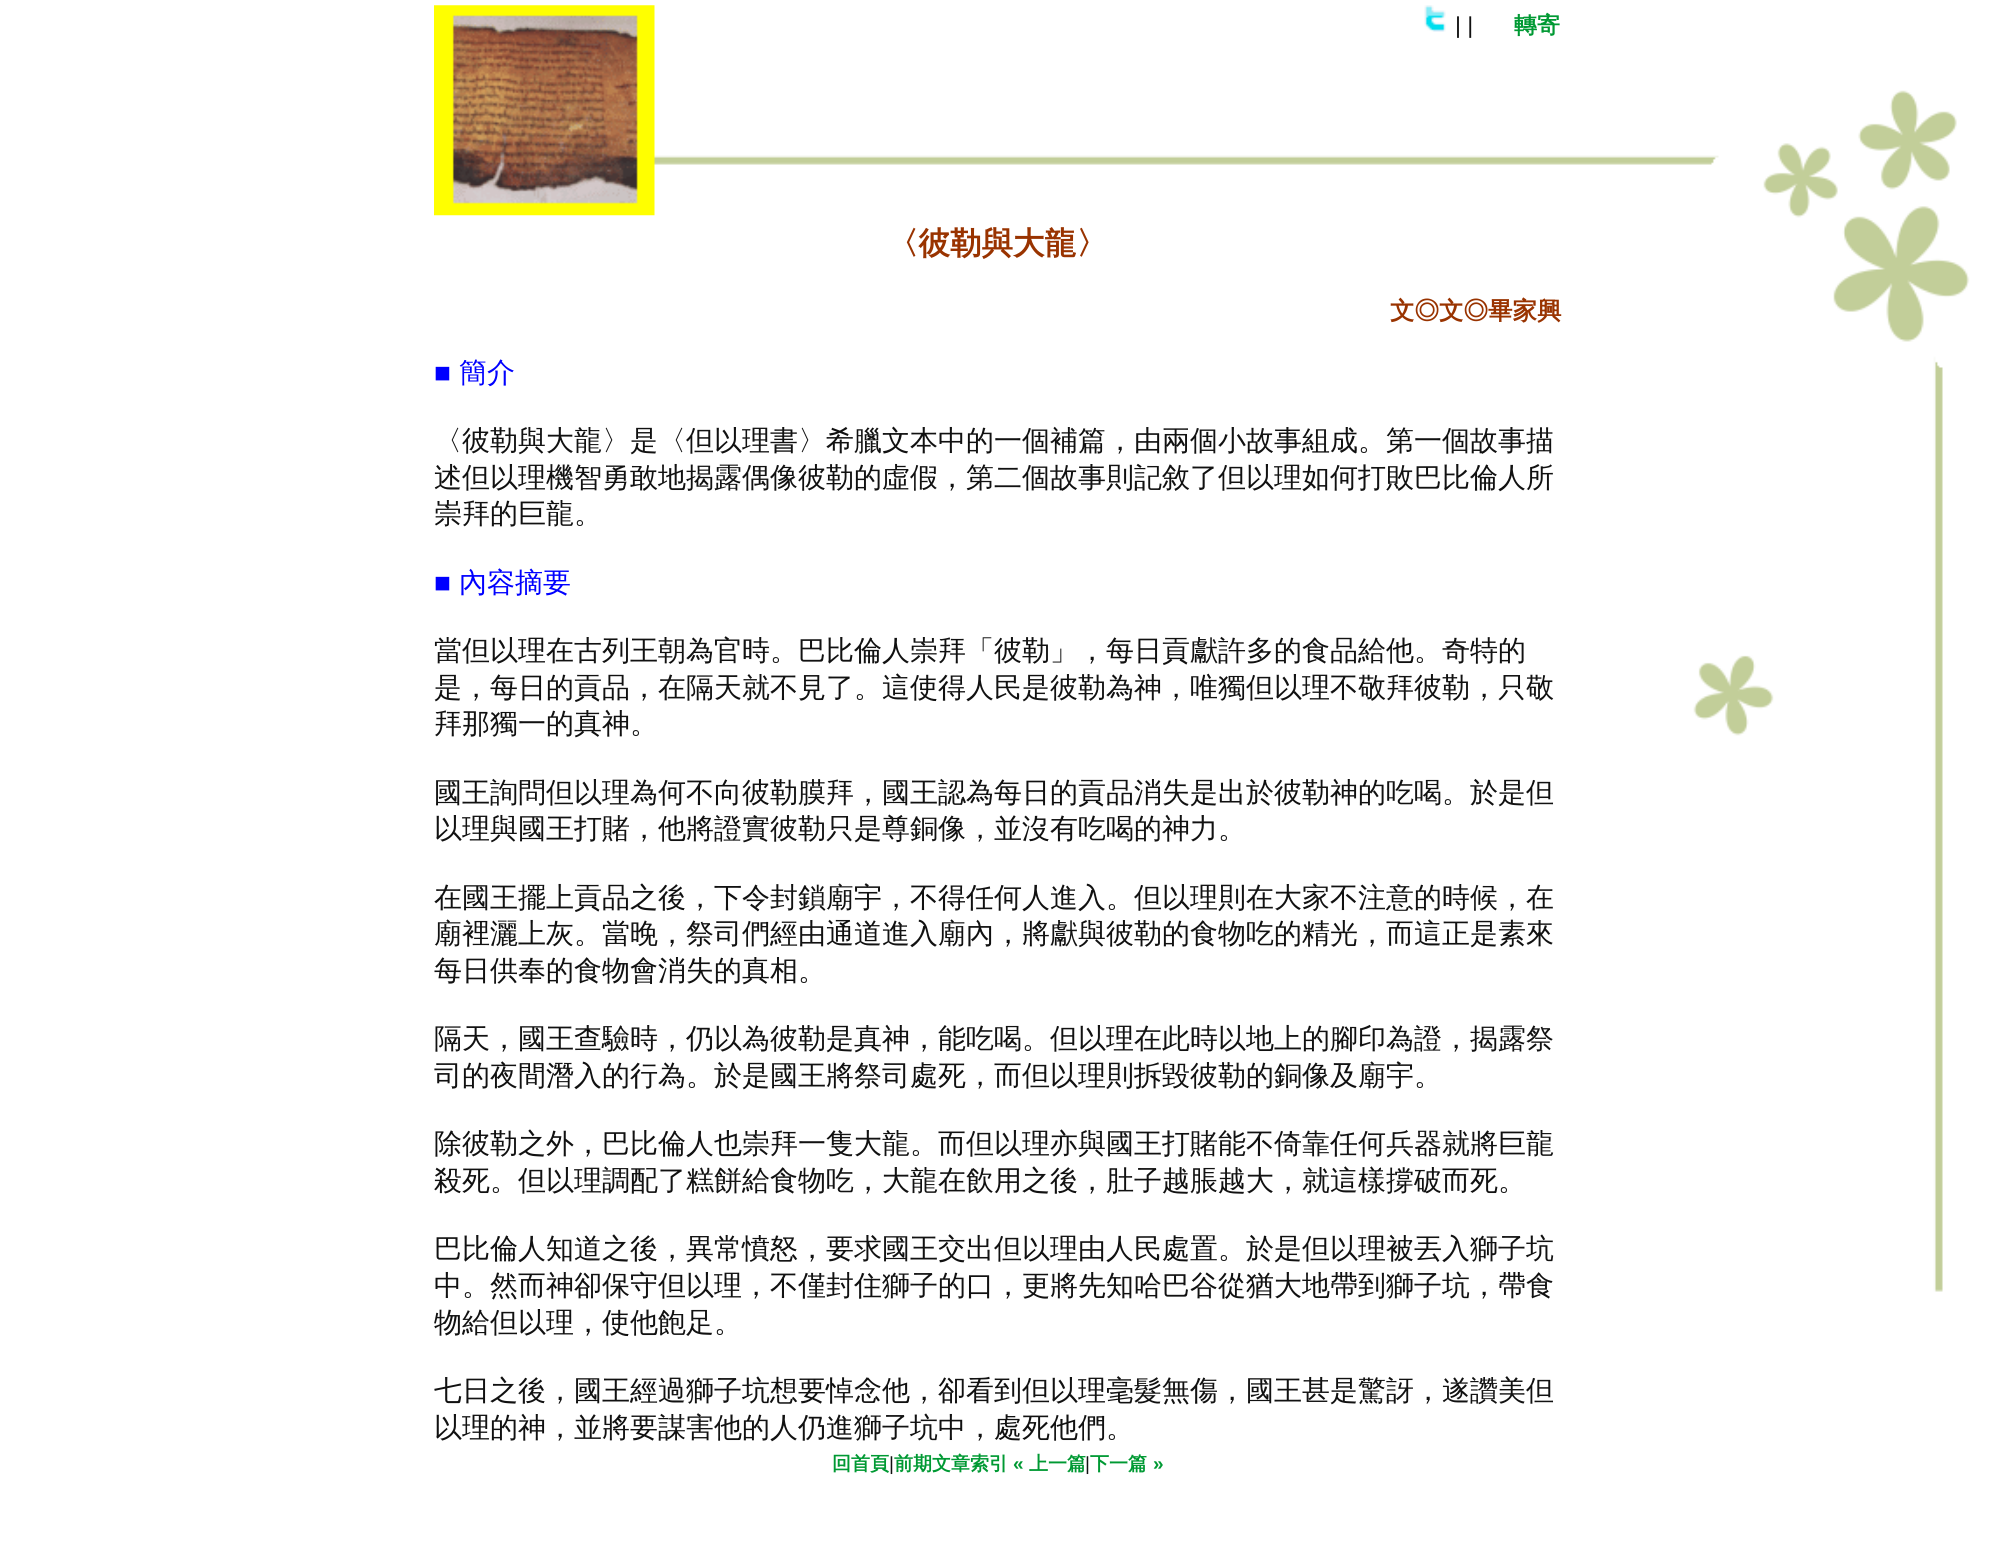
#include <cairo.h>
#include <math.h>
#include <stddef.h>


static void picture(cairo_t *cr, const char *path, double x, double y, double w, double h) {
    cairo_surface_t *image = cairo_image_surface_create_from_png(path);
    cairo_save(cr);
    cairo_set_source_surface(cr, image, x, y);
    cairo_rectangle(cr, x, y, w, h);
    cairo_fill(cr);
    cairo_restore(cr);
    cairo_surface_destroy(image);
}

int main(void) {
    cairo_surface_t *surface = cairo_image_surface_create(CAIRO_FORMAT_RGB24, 1995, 1548);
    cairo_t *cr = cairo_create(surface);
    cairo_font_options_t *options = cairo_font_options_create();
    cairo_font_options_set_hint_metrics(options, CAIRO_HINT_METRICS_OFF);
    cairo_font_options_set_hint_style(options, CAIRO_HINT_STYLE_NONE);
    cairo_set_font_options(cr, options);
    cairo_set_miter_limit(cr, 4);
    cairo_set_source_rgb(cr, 1, 1, 1);
    cairo_paint(cr);
    picture(cr, "img1.png", 507, 90, 1463, 1202);
    picture(cr, "img2.png", 434, 5, 221, 211);
    picture(cr, "img3.png", 1424, 5, 22, 27);
    cairo_select_font_face(cr, "Liberation Sans", CAIRO_FONT_SLANT_NORMAL, CAIRO_FONT_WEIGHT_NORMAL);
    cairo_set_font_size(cr, 23);
    cairo_set_source_rgb(cr, 0.067, 0.067, 0.067);
    cairo_move_to(cr, 1455, 33);
    cairo_show_text(cr, "| |");
    cairo_select_font_face(cr, "WenQuanYi Zen Hei", CAIRO_FONT_SLANT_NORMAL, CAIRO_FONT_WEIGHT_BOLD);
    cairo_set_source_rgb(cr, 0, 0.6, 0.2);
    cairo_move_to(cr, 1514, 33);
    cairo_show_text(cr, "轉寄");
    cairo_set_font_size(cr, 31.5);
    cairo_set_source_rgb(cr, 0.6, 0.2, 0);
    cairo_move_to(cr, 887, 254);
    cairo_show_text(cr, "〈彼勒與大龍〉");
    cairo_set_font_size(cr, 24.5);
    cairo_move_to(cr, 1390, 319);
    cairo_show_text(cr, "文◎文◎畢家興");
    cairo_select_font_face(cr, "Liberation Sans", CAIRO_FONT_SLANT_NORMAL, CAIRO_FONT_WEIGHT_NORMAL);
    cairo_set_font_size(cr, 28);
    cairo_set_source_rgb(cr, 0, 0, 1);
    cairo_move_to(cr, 434, 382);
    cairo_show_text(cr, "■");
    cairo_select_font_face(cr, "WenQuanYi Zen Hei Medium", CAIRO_FONT_SLANT_NORMAL, CAIRO_FONT_WEIGHT_NORMAL);
    cairo_move_to(cr, 459, 382);
    cairo_show_text(cr, "簡介");
    cairo_set_source_rgb(cr, 0.067, 0.067, 0.067);
    cairo_move_to(cr, 434, 450);
    cairo_show_text(cr, "〈彼勒與大龍〉是〈但以理書〉希臘文本中的一個補篇，由兩個小故事組成。第一個故事描");
    cairo_move_to(cr, 434, 487);
    cairo_show_text(cr, "述但以理機智勇敢地揭露偶像彼勒的虛假，第二個故事則記敘了但以理如何打敗巴比倫人所");
    cairo_move_to(cr, 434, 523);
    cairo_show_text(cr, "崇拜的巨龍。");
    cairo_select_font_face(cr, "Liberation Sans", CAIRO_FONT_SLANT_NORMAL, CAIRO_FONT_WEIGHT_NORMAL);
    cairo_set_source_rgb(cr, 0, 0, 1);
    cairo_move_to(cr, 434, 592);
    cairo_show_text(cr, "■");
    cairo_select_font_face(cr, "WenQuanYi Zen Hei Medium", CAIRO_FONT_SLANT_NORMAL, CAIRO_FONT_WEIGHT_NORMAL);
    cairo_move_to(cr, 459, 592);
    cairo_show_text(cr, "內容摘要");
    cairo_set_source_rgb(cr, 0.067, 0.067, 0.067);
    cairo_move_to(cr, 434, 660);
    cairo_show_text(cr, "當但以理在古列王朝為官時。巴比倫人崇拜「彼勒」，每日貢獻許多的食品給他。奇特的");
    cairo_move_to(cr, 434, 697);
    cairo_show_text(cr, "是，每日的貢品，在隔天就不見了。這使得人民是彼勒為神，唯獨但以理不敬拜彼勒，只敬");
    cairo_move_to(cr, 434, 733);
    cairo_show_text(cr, "拜那獨一的真神。");
    cairo_move_to(cr, 434, 802);
    cairo_show_text(cr, "國王詢問但以理為何不向彼勒膜拜，國王認為每日的貢品消失是出於彼勒神的吃喝。於是但");
    cairo_move_to(cr, 434, 838);
    cairo_show_text(cr, "以理與國王打賭，他將證實彼勒只是尊銅像，並沒有吃喝的神力。");
    cairo_move_to(cr, 434, 907);
    cairo_show_text(cr, "在國王擺上貢品之後，下令封鎖廟宇，不得任何人進入。但以理則在大家不注意的時候，在");
    cairo_move_to(cr, 434, 943);
    cairo_show_text(cr, "廟裡灑上灰。當晚，祭司們經由通道進入廟內，將獻與彼勒的食物吃的精光，而這正是素來");
    cairo_move_to(cr, 434, 980);
    cairo_show_text(cr, "每日供奉的食物會消失的真相。");
    cairo_move_to(cr, 434, 1048);
    cairo_show_text(cr, "隔天，國王查驗時，仍以為彼勒是真神，能吃喝。但以理在此時以地上的腳印為證，揭露祭");
    cairo_move_to(cr, 434, 1085);
    cairo_show_text(cr, "司的夜間潛入的行為。於是國王將祭司處死，而但以理則拆毀彼勒的銅像及廟宇。");
    cairo_move_to(cr, 434, 1153);
    cairo_show_text(cr, "除彼勒之外，巴比倫人也崇拜一隻大龍。而但以理亦與國王打賭能不倚靠任何兵器就將巨龍");
    cairo_move_to(cr, 434, 1190);
    cairo_show_text(cr, "殺死。但以理調配了糕餅給食物吃，大龍在飲用之後，肚子越脹越大，就這樣撐破而死。");
    cairo_move_to(cr, 434, 1258);
    cairo_show_text(cr, "巴比倫人知道之後，異常憤怒，要求國王交出但以理由人民處置。於是但以理被丟入獅子坑");
    cairo_move_to(cr, 434, 1295);
    cairo_show_text(cr, "中。然而神卻保守但以理，不僅封住獅子的口，更將先知哈巴谷從猶大地帶到獅子坑，帶食");
    cairo_move_to(cr, 434, 1332);
    cairo_show_text(cr, "物給但以理，使他飽足。");
    cairo_move_to(cr, 434, 1400);
    cairo_show_text(cr, "七日之後，國王經過獅子坑想要悼念他，卻看到但以理毫髮無傷，國王甚是驚訝，遂讚美但");
    cairo_move_to(cr, 434, 1437);
    cairo_show_text(cr, "以理的神，並將要謀害他的人仍進獅子坑中，處死他們。");
    cairo_select_font_face(cr, "WenQuanYi Zen Hei", CAIRO_FONT_SLANT_NORMAL, CAIRO_FONT_WEIGHT_BOLD);
    cairo_set_font_size(cr, 19);
    cairo_set_source_rgb(cr, 0, 0.6, 0.2);
    cairo_move_to(cr, 832, 1470);
    cairo_show_text(cr, "回首頁");
    cairo_select_font_face(cr, "Liberation Sans", CAIRO_FONT_SLANT_NORMAL, CAIRO_FONT_WEIGHT_NORMAL);
    cairo_set_source_rgb(cr, 0.067, 0.067, 0.067);
    cairo_move_to(cr, 889, 1470);
    cairo_show_text(cr, "|");
    cairo_select_font_face(cr, "WenQuanYi Zen Hei", CAIRO_FONT_SLANT_NORMAL, CAIRO_FONT_WEIGHT_BOLD);
    cairo_set_source_rgb(cr, 0, 0.6, 0.2);
    cairo_move_to(cr, 894, 1470);
    cairo_show_text(cr, "前期文章索引");
    cairo_select_font_face(cr, "Liberation Sans", CAIRO_FONT_SLANT_NORMAL, CAIRO_FONT_WEIGHT_BOLD);
    cairo_move_to(cr, 1013, 1470);
    cairo_show_text(cr, "«");
    cairo_select_font_face(cr, "WenQuanYi Zen Hei", CAIRO_FONT_SLANT_NORMAL, CAIRO_FONT_WEIGHT_BOLD);
    cairo_move_to(cr, 1029, 1470);
    cairo_show_text(cr, "上一篇");
    cairo_select_font_face(cr, "Liberation Sans", CAIRO_FONT_SLANT_NORMAL, CAIRO_FONT_WEIGHT_NORMAL);
    cairo_set_source_rgb(cr, 0.067, 0.067, 0.067);
    cairo_move_to(cr, 1085, 1470);
    cairo_show_text(cr, "|");
    cairo_select_font_face(cr, "WenQuanYi Zen Hei", CAIRO_FONT_SLANT_NORMAL, CAIRO_FONT_WEIGHT_BOLD);
    cairo_set_source_rgb(cr, 0, 0.6, 0.2);
    cairo_move_to(cr, 1090, 1470);
    cairo_show_text(cr, "下一篇");
    cairo_select_font_face(cr, "Liberation Sans", CAIRO_FONT_SLANT_NORMAL, CAIRO_FONT_WEIGHT_BOLD);
    cairo_move_to(cr, 1153, 1470);
    cairo_show_text(cr, "»");
    cairo_surface_write_to_png(surface, "page.png");
    cairo_font_options_destroy(options);
    cairo_destroy(cr);
    cairo_surface_destroy(surface);
    return 0;
}
